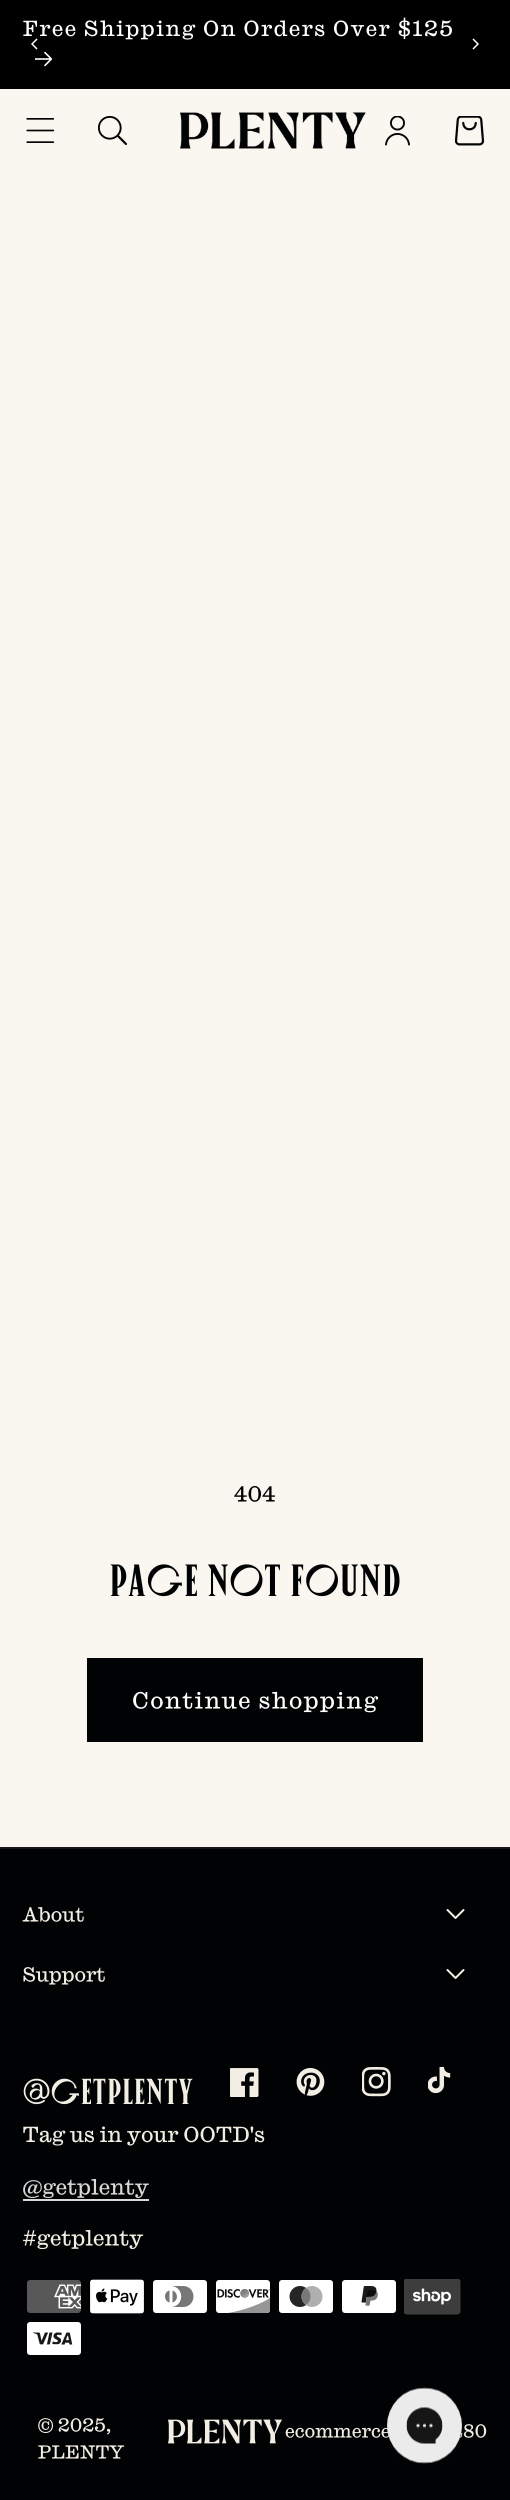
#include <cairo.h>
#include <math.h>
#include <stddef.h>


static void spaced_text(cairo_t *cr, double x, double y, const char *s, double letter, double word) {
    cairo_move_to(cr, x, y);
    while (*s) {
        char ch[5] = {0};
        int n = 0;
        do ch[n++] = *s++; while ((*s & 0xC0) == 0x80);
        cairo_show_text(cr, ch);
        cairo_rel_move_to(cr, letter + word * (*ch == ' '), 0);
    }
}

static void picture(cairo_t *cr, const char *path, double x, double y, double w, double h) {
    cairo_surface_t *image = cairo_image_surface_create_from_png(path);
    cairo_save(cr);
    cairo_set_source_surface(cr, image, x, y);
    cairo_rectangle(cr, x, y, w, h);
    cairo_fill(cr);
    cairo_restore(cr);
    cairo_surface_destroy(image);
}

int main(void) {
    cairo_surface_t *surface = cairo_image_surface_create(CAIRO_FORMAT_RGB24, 510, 2500);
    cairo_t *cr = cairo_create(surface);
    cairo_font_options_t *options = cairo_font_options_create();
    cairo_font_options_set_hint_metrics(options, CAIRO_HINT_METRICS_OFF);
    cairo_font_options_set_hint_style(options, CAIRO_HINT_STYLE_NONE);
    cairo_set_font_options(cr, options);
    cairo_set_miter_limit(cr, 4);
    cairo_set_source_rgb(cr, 0.973, 0.965, 0.937);
    cairo_paint(cr);
    cairo_set_source_rgb(cr, 0, 0, 0);
    cairo_rectangle(cr, 0, 0, 510, 89);
    cairo_fill(cr);
    picture(cr, "img1.png", 23, 17, 429, 23);
    picture(cr, "img2.png", 35, 51, 18, 16);
    picture(cr, "img3.png", 31, 38, 7, 12);
    picture(cr, "img4.png", 472, 38, 7, 12);
    picture(cr, "img5.png", 26, 118, 29, 25);
    picture(cr, "img6.png", 98, 116, 29, 29);
    picture(cr, "img7.png", 180, 112, 186, 37);
    picture(cr, "img8.png", 385, 116, 25, 30);
    picture(cr, "img9.png", 455, 116, 30, 30);
    picture(cr, "img10.png", 234, 1485, 41, 17);
    cairo_select_font_face(cr, "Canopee", CAIRO_FONT_SLANT_NORMAL, CAIRO_FONT_WEIGHT_NORMAL);
    cairo_set_font_size(cr, 45);
    cairo_set_source_rgb(cr, 0.004, 0.008, 0.012);
    spaced_text(cr, 109, 1596, "Page not found", 0.9, 0);
    cairo_rectangle(cr, 87, 1658, 336, 84);
    cairo_fill(cr);
    picture(cr, "img11.png", 133, 1691, 246, 22);
    cairo_rectangle(cr, 0, 1849, 510, 651);
    cairo_fill(cr);
    cairo_set_source_rgb(cr, 0.082, 0.086, 0.09);
    cairo_rectangle(cr, 0, 1847, 510, 2);
    cairo_fill(cr);
    picture(cr, "img12.png", 22, 1907, 62, 15);
    picture(cr, "img13.png", 446, 1909, 19, 10);
    picture(cr, "img14.png", 23, 1967, 82, 18);
    picture(cr, "img13.png", 446, 1969, 19, 10);
    cairo_set_font_size(cr, 36);
    cairo_set_source_rgb(cr, 0.949, 0.933, 0.894);
    spaced_text(cr, 23, 2104, "@GetPlenty", 0.9, 0);
    picture(cr, "img15.png", 230, 2068, 29, 29);
    picture(cr, "img16.png", 296, 2068, 29, 28);
    picture(cr, "img17.png", 362, 2067, 29, 30);
    picture(cr, "img18.png", 428, 2067, 23, 27);
    picture(cr, "img19.png", 23, 2126, 242, 20);
    picture(cr, "img20.png", 23, 2178, 126, 21);
    cairo_set_source_rgb(cr, 0.851, 0.851, 0.851);
    cairo_rectangle(cr, 23, 2199, 126, 2);
    cairo_fill(cr);
    picture(cr, "img21.png", 23, 2229, 121, 21);
    picture(cr, "img22.png", 27, 2280, 54, 33);
    picture(cr, "img23.png", 90, 2279, 54, 35);
    picture(cr, "img24.png", 153, 2280, 54, 33);
    picture(cr, "img25.png", 216, 2280, 55, 33);
    picture(cr, "img26.png", 279, 2280, 54, 33);
    picture(cr, "img27.png", 342, 2280, 54, 33);
    picture(cr, "img28.png", 404, 2279, 57, 36);
    picture(cr, "img29.png", 27, 2322, 54, 33);
    picture(cr, "img30.png", 38, 2418, 73, 17);
    picture(cr, "img31.png", 38, 2445, 87, 14);
    picture(cr, "img32.png", 168, 2419, 114, 25);
    picture(cr, "img33.png", 285, 2424, 202, 14);
    picture(cr, "img34.png", 384, 2387, 81, 77);
    cairo_surface_write_to_png(surface, "page.png");
    cairo_font_options_destroy(options);
    cairo_destroy(cr);
    cairo_surface_destroy(surface);
    return 0;
}
